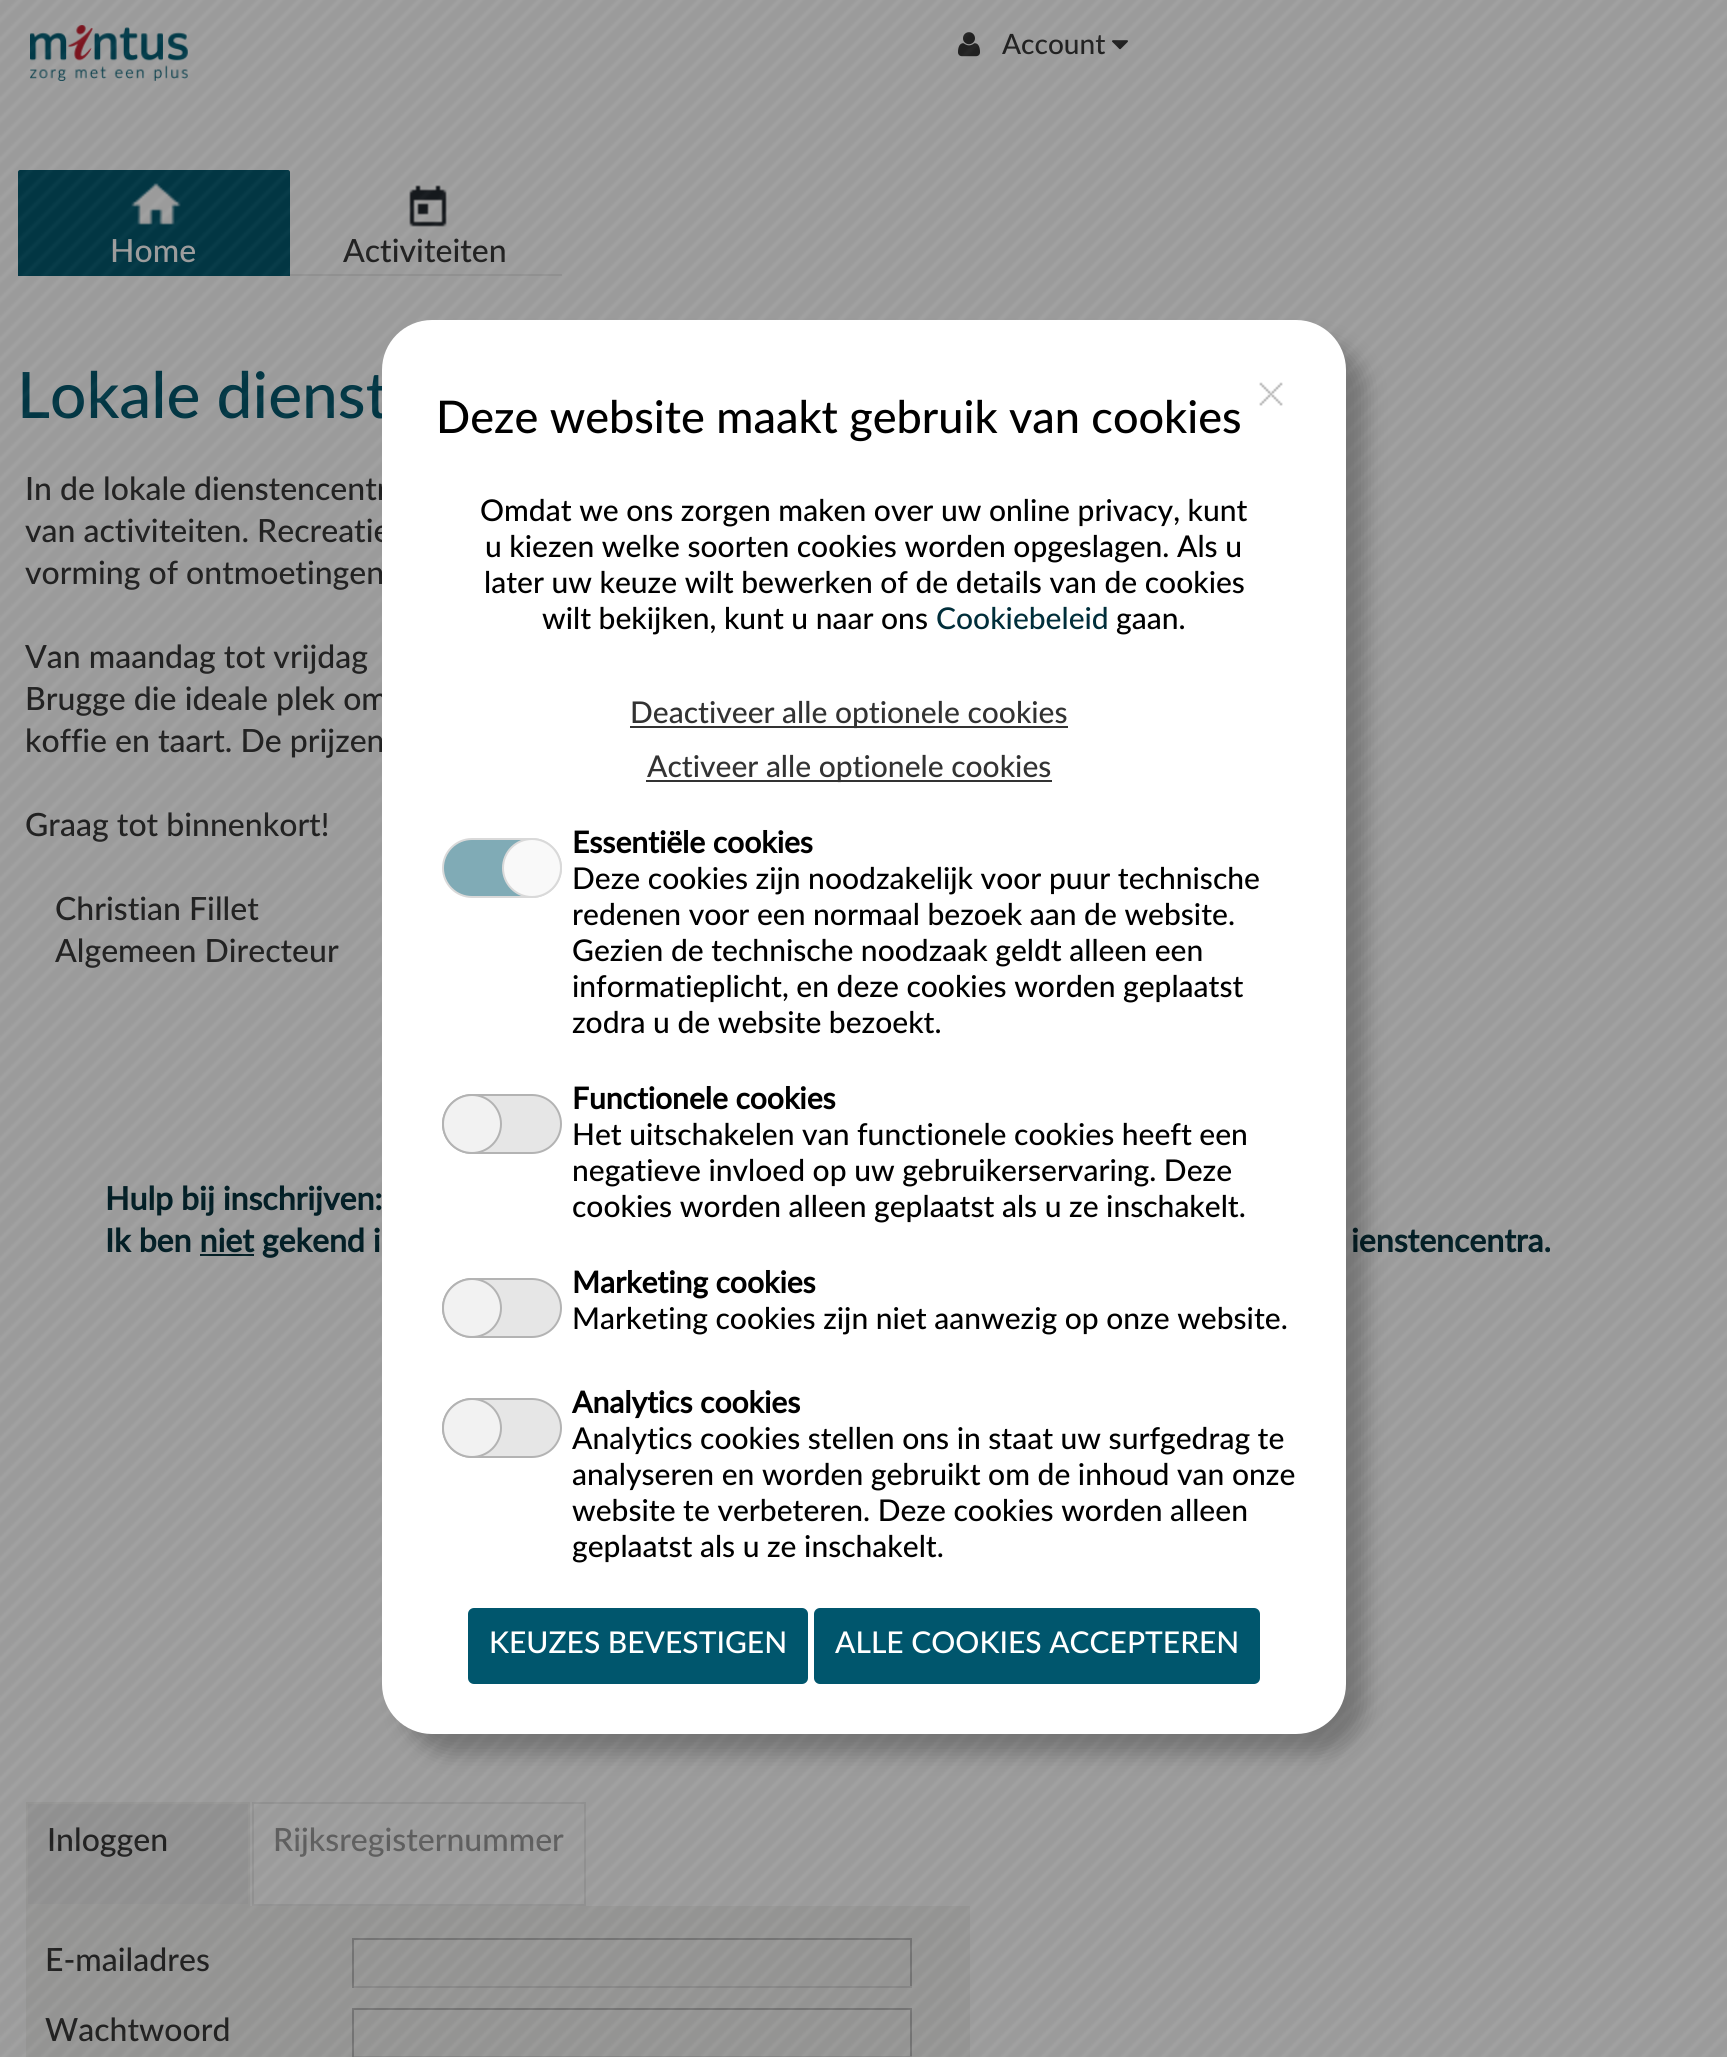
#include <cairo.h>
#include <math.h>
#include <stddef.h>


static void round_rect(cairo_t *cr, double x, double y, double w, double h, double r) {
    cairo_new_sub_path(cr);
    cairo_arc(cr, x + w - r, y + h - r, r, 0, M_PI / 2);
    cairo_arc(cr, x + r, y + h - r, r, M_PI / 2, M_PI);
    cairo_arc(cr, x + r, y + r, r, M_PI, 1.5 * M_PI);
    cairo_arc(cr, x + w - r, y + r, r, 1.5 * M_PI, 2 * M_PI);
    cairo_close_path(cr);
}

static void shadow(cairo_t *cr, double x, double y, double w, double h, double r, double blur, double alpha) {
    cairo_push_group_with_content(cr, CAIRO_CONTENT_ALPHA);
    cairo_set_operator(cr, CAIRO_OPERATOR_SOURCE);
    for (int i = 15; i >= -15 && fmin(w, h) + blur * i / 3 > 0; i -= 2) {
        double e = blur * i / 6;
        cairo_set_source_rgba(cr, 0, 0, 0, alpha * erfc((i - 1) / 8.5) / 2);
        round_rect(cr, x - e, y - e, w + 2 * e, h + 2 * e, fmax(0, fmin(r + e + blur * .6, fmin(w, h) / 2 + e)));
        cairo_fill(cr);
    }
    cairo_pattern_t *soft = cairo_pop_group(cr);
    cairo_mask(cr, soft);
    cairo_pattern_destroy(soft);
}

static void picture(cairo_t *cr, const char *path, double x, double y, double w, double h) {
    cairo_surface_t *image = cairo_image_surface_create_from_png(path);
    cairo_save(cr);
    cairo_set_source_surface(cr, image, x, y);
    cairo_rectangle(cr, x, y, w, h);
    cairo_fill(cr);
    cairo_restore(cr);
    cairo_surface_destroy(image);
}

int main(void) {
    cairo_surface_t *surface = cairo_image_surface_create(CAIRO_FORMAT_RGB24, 1727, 2057);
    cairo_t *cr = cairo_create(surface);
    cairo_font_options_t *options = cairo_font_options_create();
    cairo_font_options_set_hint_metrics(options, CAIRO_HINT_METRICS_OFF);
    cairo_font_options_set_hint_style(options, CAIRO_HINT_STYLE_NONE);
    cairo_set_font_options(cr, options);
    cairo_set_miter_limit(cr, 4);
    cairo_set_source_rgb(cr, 1, 1, 1);
    cairo_paint(cr);
    picture(cr, "img1.png", 30, 25, 158, 56);
    picture(cr, "img2.png", 958, 32, 22, 25);
    cairo_select_font_face(cr, "Lato Medium", CAIRO_FONT_SLANT_NORMAL, CAIRO_FONT_WEIGHT_NORMAL);
    cairo_set_font_size(cr, 28);
    cairo_set_source_rgb(cr, 0.2, 0.2, 0.2);
    cairo_move_to(cr, 1002, 54);
    cairo_show_text(cr, "Account");
    picture(cr, "img3.png", 1112, 40, 16, 10);
    cairo_set_source_rgb(cr, 0, 0.337, 0.427);
    cairo_new_path(cr);
    cairo_move_to(cr, 20, 170);
    cairo_line_to(cr, 288, 170);
    cairo_curve_to(cr, 289, 170, 290, 171, 290, 172);
    cairo_line_to(cr, 290, 276);
    cairo_line_to(cr, 18, 276);
    cairo_line_to(cr, 18, 172);
    cairo_curve_to(cr, 18, 171, 19, 170, 20, 170);
    cairo_close_path(cr);
    cairo_fill(cr);
    picture(cr, "img4.png", 131, 183, 50, 42);
    cairo_set_font_size(cr, 32);
    cairo_set_source_rgb(cr, 1, 1, 1);
    cairo_move_to(cr, 110, 262);
    cairo_show_text(cr, "Home");
    picture(cr, "img5.png", 409, 185, 38, 42);
    cairo_set_source_rgb(cr, 0.925, 0.925, 0.925);
    cairo_rectangle(cr, 290, 274, 272, 2);
    cairo_fill(cr);
    cairo_set_source_rgb(cr, 0.2, 0.2, 0.2);
    cairo_move_to(cr, 343, 262);
    cairo_show_text(cr, "Activiteiten");
    cairo_set_font_size(cr, 64);
    cairo_set_source_rgb(cr, 0, 0.337, 0.427);
    cairo_move_to(cr, 17, 418);
    cairo_show_text(cr, "Lokale dienst");
    cairo_set_font_size(cr, 32);
    cairo_set_source_rgb(cr, 0.2, 0.2, 0.2);
    cairo_move_to(cr, 25, 500);
    cairo_show_text(cr, "In de lokale dienstencentr");
    cairo_move_to(cr, 25, 542);
    cairo_show_text(cr, "van activiteiten. Recreatie");
    cairo_move_to(cr, 25, 584);
    cairo_show_text(cr, "vorming of ontmoetingen");
    cairo_move_to(cr, 25, 668);
    cairo_show_text(cr, "Van maandag tot vrijdag");
    cairo_move_to(cr, 25, 710);
    cairo_show_text(cr, "Brugge die ideale plek om");
    cairo_move_to(cr, 25, 752);
    cairo_show_text(cr, "koffie en taart. De prijzen");
    cairo_move_to(cr, 25, 836);
    cairo_show_text(cr, "Graag tot binnenkort!");
    cairo_move_to(cr, 55, 920);
    cairo_show_text(cr, "Christian Fillet");
    cairo_move_to(cr, 55, 962);
    cairo_show_text(cr, "Algemeen Directeur");
    cairo_select_font_face(cr, "Lato", CAIRO_FONT_SLANT_NORMAL, CAIRO_FONT_WEIGHT_BOLD);
    cairo_set_source_rgb(cr, 0, 0.18, 0.227);
    cairo_move_to(cr, 105, 1210);
    cairo_show_text(cr, "Hulp bij inschrijven:");
    cairo_move_to(cr, 105, 1252);
    cairo_show_text(cr, "Ik ben niet gekend i");
    cairo_rectangle(cr, 200, 1254, 54, 2);
    cairo_fill(cr);
    cairo_move_to(cr, 1351, 1252);
    cairo_show_text(cr, "ienstencentra.");
    cairo_set_source_rgb(cr, 0.925, 0.925, 0.925);
    cairo_rectangle(cr, 27, 1803, 222, 102);
    cairo_fill_preserve(cr);
    cairo_set_source_rgb(cr, 0.957, 0.957, 0.949);
    cairo_stroke(cr);
    cairo_select_font_face(cr, "Lato Medium", CAIRO_FONT_SLANT_NORMAL, CAIRO_FONT_WEIGHT_NORMAL);
    cairo_set_source_rgb(cr, 0.2, 0.2, 0.2);
    cairo_move_to(cr, 47, 1851);
    cairo_show_text(cr, "Inloggen");
    cairo_rectangle(cr, 253, 1803, 332, 102);
    cairo_set_source_rgb(cr, 0.925, 0.925, 0.925);
    cairo_stroke(cr);
    cairo_set_source_rgb(cr, 0.6, 0.6, 0.6);
    cairo_move_to(cr, 273, 1851);
    cairo_show_text(cr, "Rijksregisternummer");
    cairo_set_source_rgb(cr, 0.957, 0.957, 0.949);
    cairo_rectangle(cr, 26, 1906, 944, 151);
    cairo_fill(cr);
    cairo_set_source_rgb(cr, 0.2, 0.2, 0.2);
    cairo_move_to(cr, 45, 1971);
    cairo_show_text(cr, "E-mailadres");
    cairo_set_source_rgb(cr, 0.741, 0.741, 0.741);
    cairo_rectangle(cr, 352, 1938, 560, 2);
    cairo_fill(cr);
    cairo_rectangle(cr, 910, 1938, 2, 50);
    cairo_fill(cr);
    cairo_set_source_rgb(cr, 0.859, 0.859, 0.859);
    cairo_rectangle(cr, 352, 1986, 560, 2);
    cairo_fill(cr);
    cairo_set_source_rgb(cr, 0.741, 0.741, 0.741);
    cairo_rectangle(cr, 352, 1938, 2, 50);
    cairo_fill(cr);
    cairo_set_source_rgb(cr, 0.2, 0.2, 0.2);
    cairo_move_to(cr, 45, 2041);
    cairo_show_text(cr, "Wachtwoord");
    cairo_set_source_rgb(cr, 0.741, 0.741, 0.741);
    cairo_rectangle(cr, 352, 2008, 560, 2);
    cairo_fill(cr);
    cairo_rectangle(cr, 910, 2008, 2, 49);
    cairo_fill(cr);
    cairo_set_source_rgb(cr, 0.859, 0.859, 0.859);
    cairo_rectangle(cr, 352, 2056, 560, 1);
    cairo_fill(cr);
    cairo_set_source_rgb(cr, 0.741, 0.741, 0.741);
    cairo_rectangle(cr, 352, 2008, 2, 49);
    cairo_fill(cr);
    picture(cr, "img6.png", 0, 0, 1727, 2057);
    cairo_set_source_rgb(cr, 0, 0, 0);
    shadow(cr, 402, 340, 964, 1414, 50, 10, 0.25);
    cairo_set_source_rgb(cr, 1, 1, 1);
    round_rect(cr, 392, 330, 944, 1394, 40);
    cairo_fill_preserve(cr);
    cairo_set_line_width(cr, 20);
    cairo_stroke(cr);
    picture(cr, "img7.png", 1259, 382, 24, 24);
    cairo_set_font_size(cr, 45);
    cairo_set_source_rgb(cr, 0, 0, 0);
    cairo_move_to(cr, 436, 433);
    cairo_show_text(cr, "Deze website maakt gebruik van cookies");
    cairo_set_font_size(cr, 30);
    cairo_move_to(cr, 480, 521);
    cairo_show_text(cr, "Omdat we ons zorgen maken over uw online privacy, kunt");
    cairo_move_to(cr, 485, 557);
    cairo_show_text(cr, "u kiezen welke soorten cookies worden opgeslagen. Als u");
    cairo_move_to(cr, 484, 593);
    cairo_show_text(cr, "later uw keuze wilt bewerken of de details van de cookies");
    cairo_move_to(cr, 542, 629);
    cairo_show_text(cr, "wilt bekijken, kunt u naar ons");
    cairo_set_source_rgb(cr, 0, 0.18, 0.227);
    cairo_move_to(cr, 936, 629);
    cairo_show_text(cr, "Cookiebeleid");
    cairo_set_source_rgb(cr, 0, 0, 0);
    cairo_move_to(cr, 1116, 629);
    cairo_show_text(cr, "gaan.");
    cairo_set_source_rgb(cr, 0.2, 0.2, 0.2);
    cairo_rectangle(cr, 630, 726, 438, 2);
    cairo_fill(cr);
    cairo_move_to(cr, 630, 723);
    cairo_show_text(cr, "Deactiveer alle optionele cookies");
    cairo_rectangle(cr, 646, 780, 406, 2);
    cairo_fill(cr);
    cairo_move_to(cr, 647, 777);
    cairo_show_text(cr, "Activeer alle optionele cookies");
    cairo_set_source_rgb(cr, 0.502, 0.671, 0.714);
    round_rect(cr, 443, 839, 118, 58, 29);
    cairo_fill_preserve(cr);
    cairo_set_source_rgb(cr, 0.851, 0.851, 0.851);
    cairo_set_line_width(cr, 2);
    cairo_stroke(cr);
    cairo_set_source_rgb(cr, 0.976, 0.976, 0.976);
    cairo_arc(cr, 532, 868, 29, 0, 2 * M_PI);
    cairo_fill_preserve(cr);
    cairo_set_source_rgb(cr, 0.851, 0.851, 0.851);
    cairo_stroke(cr);
    cairo_select_font_face(cr, "Lato", CAIRO_FONT_SLANT_NORMAL, CAIRO_FONT_WEIGHT_BOLD);
    cairo_set_source_rgb(cr, 0, 0, 0);
    cairo_move_to(cr, 572, 853);
    cairo_show_text(cr, "Essentiële cookies");
    cairo_select_font_face(cr, "Lato Medium", CAIRO_FONT_SLANT_NORMAL, CAIRO_FONT_WEIGHT_NORMAL);
    cairo_move_to(cr, 572, 889);
    cairo_show_text(cr, "Deze cookies zijn noodzakelijk voor puur technische");
    cairo_move_to(cr, 572, 925);
    cairo_show_text(cr, "redenen voor een normaal bezoek aan de website.");
    cairo_move_to(cr, 572, 961);
    cairo_show_text(cr, "Gezien de technische noodzaak geldt alleen een");
    cairo_move_to(cr, 572, 997);
    cairo_show_text(cr, "informatieplicht, en deze cookies worden geplaatst");
    cairo_move_to(cr, 572, 1033);
    cairo_show_text(cr, "zodra u de website bezoekt.");
    cairo_set_source_rgb(cr, 0.902, 0.902, 0.902);
    round_rect(cr, 443, 1095, 118, 58, 29);
    cairo_fill_preserve(cr);
    cairo_set_source_rgb(cr, 0.702, 0.702, 0.702);
    cairo_stroke(cr);
    cairo_set_source_rgb(cr, 0.949, 0.949, 0.949);
    cairo_arc(cr, 472, 1124, 29, 0, 2 * M_PI);
    cairo_fill_preserve(cr);
    cairo_set_source_rgb(cr, 0.702, 0.702, 0.702);
    cairo_stroke(cr);
    cairo_select_font_face(cr, "Lato", CAIRO_FONT_SLANT_NORMAL, CAIRO_FONT_WEIGHT_BOLD);
    cairo_set_source_rgb(cr, 0, 0, 0);
    cairo_move_to(cr, 572, 1109);
    cairo_show_text(cr, "Functionele cookies");
    cairo_select_font_face(cr, "Lato Medium", CAIRO_FONT_SLANT_NORMAL, CAIRO_FONT_WEIGHT_NORMAL);
    cairo_move_to(cr, 572, 1145);
    cairo_show_text(cr, "Het uitschakelen van functionele cookies heeft een");
    cairo_move_to(cr, 572, 1181);
    cairo_show_text(cr, "negatieve invloed op uw gebruikerservaring. Deze");
    cairo_move_to(cr, 572, 1217);
    cairo_show_text(cr, "cookies worden alleen geplaatst als u ze inschakelt.");
    cairo_set_source_rgb(cr, 0.902, 0.902, 0.902);
    round_rect(cr, 443, 1279, 118, 58, 29);
    cairo_fill_preserve(cr);
    cairo_set_source_rgb(cr, 0.702, 0.702, 0.702);
    cairo_stroke(cr);
    cairo_set_source_rgb(cr, 0.949, 0.949, 0.949);
    cairo_arc(cr, 472, 1308, 29, 0, 2 * M_PI);
    cairo_fill_preserve(cr);
    cairo_set_source_rgb(cr, 0.702, 0.702, 0.702);
    cairo_stroke(cr);
    cairo_select_font_face(cr, "Lato", CAIRO_FONT_SLANT_NORMAL, CAIRO_FONT_WEIGHT_BOLD);
    cairo_set_source_rgb(cr, 0, 0, 0);
    cairo_move_to(cr, 572, 1293);
    cairo_show_text(cr, "Marketing cookies");
    cairo_select_font_face(cr, "Lato Medium", CAIRO_FONT_SLANT_NORMAL, CAIRO_FONT_WEIGHT_NORMAL);
    cairo_move_to(cr, 572, 1329);
    cairo_show_text(cr, "Marketing cookies zijn niet aanwezig op onze website.");
    cairo_set_source_rgb(cr, 0.902, 0.902, 0.902);
    round_rect(cr, 443, 1399, 118, 58, 29);
    cairo_fill_preserve(cr);
    cairo_set_source_rgb(cr, 0.702, 0.702, 0.702);
    cairo_stroke(cr);
    cairo_set_source_rgb(cr, 0.949, 0.949, 0.949);
    cairo_arc(cr, 472, 1428, 29, 0, 2 * M_PI);
    cairo_fill_preserve(cr);
    cairo_set_source_rgb(cr, 0.702, 0.702, 0.702);
    cairo_stroke(cr);
    cairo_select_font_face(cr, "Lato", CAIRO_FONT_SLANT_NORMAL, CAIRO_FONT_WEIGHT_BOLD);
    cairo_set_source_rgb(cr, 0, 0, 0);
    cairo_move_to(cr, 572, 1413);
    cairo_show_text(cr, "Analytics cookies");
    cairo_select_font_face(cr, "Lato Medium", CAIRO_FONT_SLANT_NORMAL, CAIRO_FONT_WEIGHT_NORMAL);
    cairo_move_to(cr, 572, 1449);
    cairo_show_text(cr, "Analytics cookies stellen ons in staat uw surfgedrag te");
    cairo_move_to(cr, 572, 1485);
    cairo_show_text(cr, "analyseren en worden gebruikt om de inhoud van onze");
    cairo_move_to(cr, 572, 1521);
    cairo_show_text(cr, "website te verbeteren. Deze cookies worden alleen");
    cairo_move_to(cr, 572, 1557);
    cairo_show_text(cr, "geplaatst als u ze inschakelt.");
    cairo_set_source_rgb(cr, 0, 0.337, 0.427);
    round_rect(cr, 468, 1608, 340, 76, 6);
    cairo_fill(cr);
    cairo_set_source_rgb(cr, 1, 1, 1);
    cairo_move_to(cr, 489, 1653);
    cairo_show_text(cr, "KEUZES BEVESTIGEN");
    cairo_set_source_rgb(cr, 0, 0.337, 0.427);
    round_rect(cr, 814, 1608, 446, 76, 6);
    cairo_fill(cr);
    cairo_set_source_rgb(cr, 1, 1, 1);
    cairo_move_to(cr, 835, 1653);
    cairo_show_text(cr, "ALLE COOKIES ACCEPTEREN");
    cairo_surface_write_to_png(surface, "page.png");
    cairo_font_options_destroy(options);
    cairo_destroy(cr);
    cairo_surface_destroy(surface);
    return 0;
}
